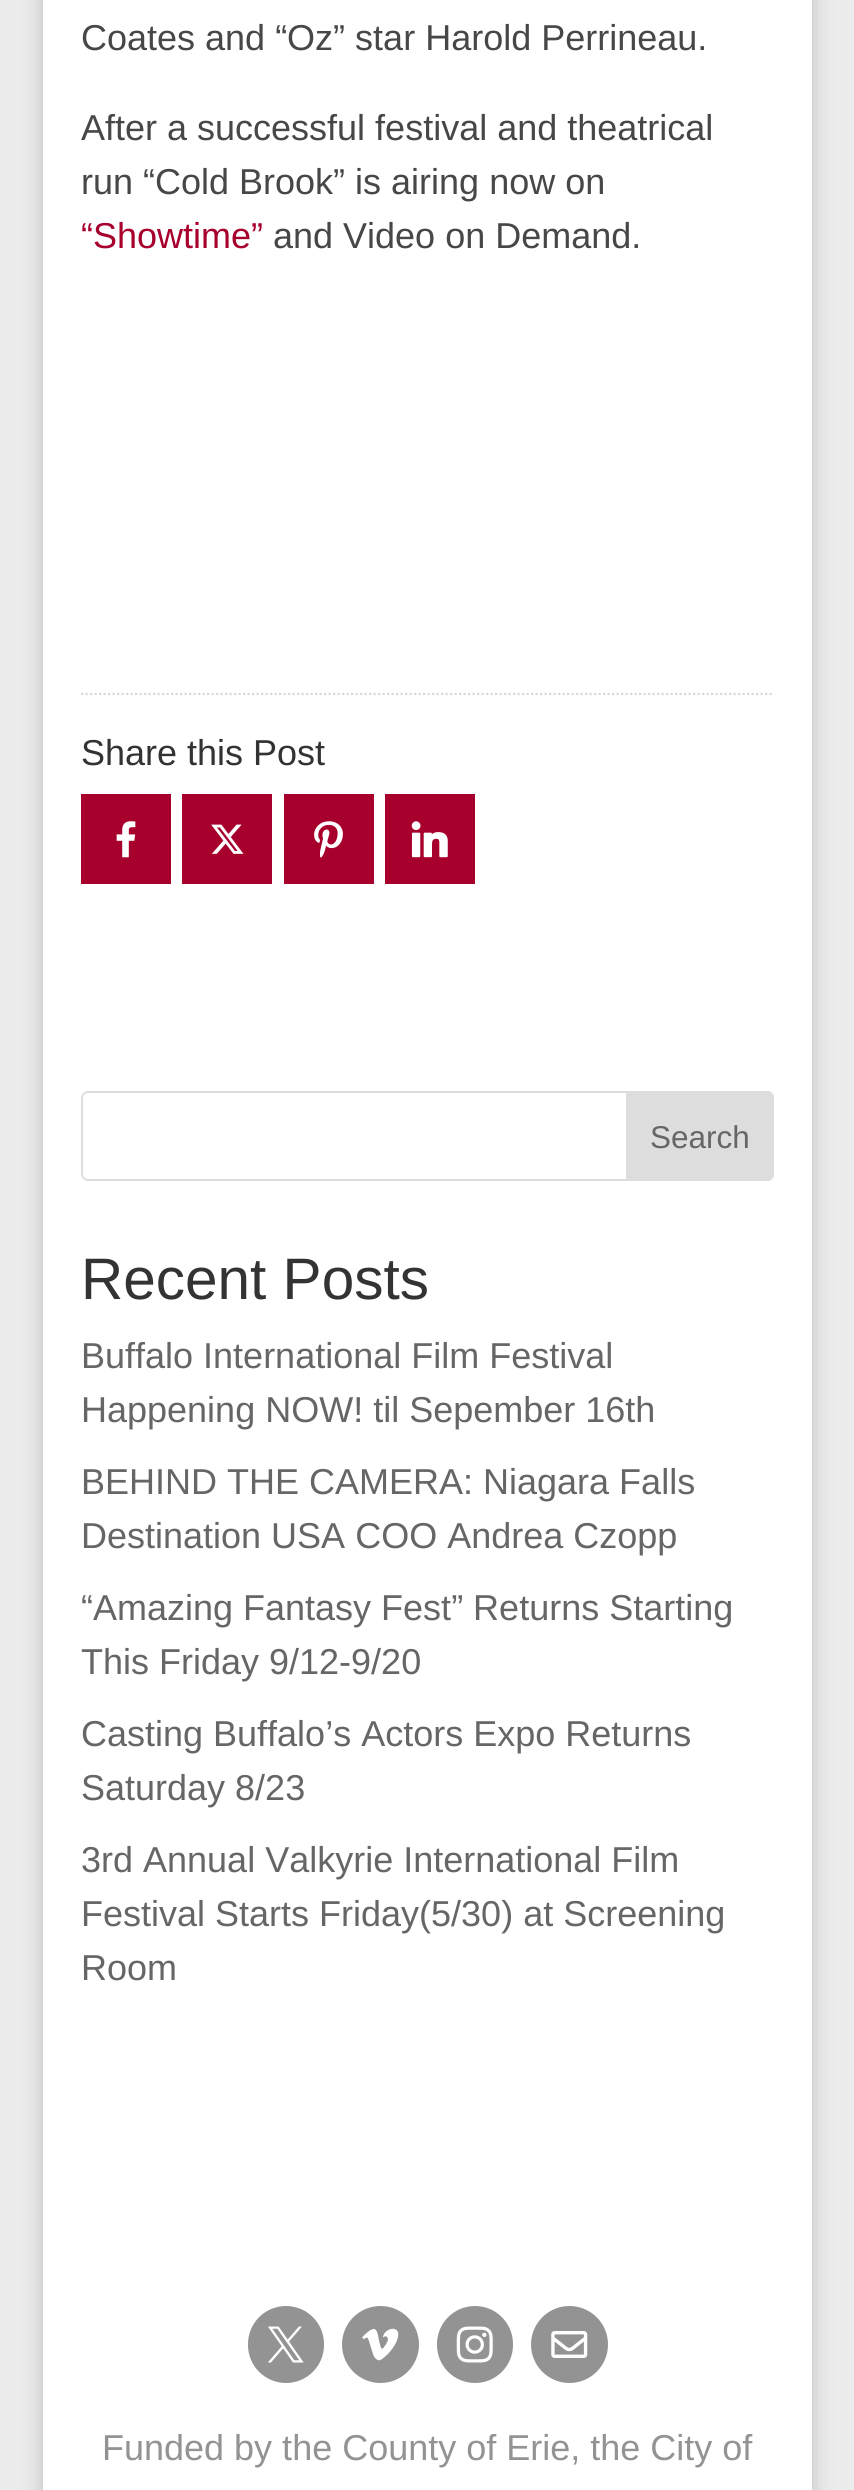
#include <cairo.h>
#include <math.h>
#include <stddef.h>


static void round_rect(cairo_t *cr, double x, double y, double w, double h, double r) {
    cairo_new_sub_path(cr);
    cairo_arc(cr, x + w - r, y + h - r, r, 0, M_PI / 2);
    cairo_arc(cr, x + r, y + h - r, r, M_PI / 2, M_PI);
    cairo_arc(cr, x + r, y + r, r, M_PI, 1.5 * M_PI);
    cairo_arc(cr, x + w - r, y + r, r, 1.5 * M_PI, 2 * M_PI);
    cairo_close_path(cr);
}

static void shadow(cairo_t *cr, double x, double y, double w, double h, double r, double blur, double alpha) {
    cairo_push_group_with_content(cr, CAIRO_CONTENT_ALPHA);
    cairo_set_operator(cr, CAIRO_OPERATOR_SOURCE);
    for (int i = 15; i >= -15 && fmin(w, h) + blur * i / 3 > 0; i -= 2) {
        double e = blur * i / 6;
        cairo_set_source_rgba(cr, 0, 0, 0, alpha * erfc((i - 1) / 8.5) / 2);
        round_rect(cr, x - e, y - e, w + 2 * e, h + 2 * e, fmax(0, fmin(r + e + blur * .6, fmin(w, h) / 2 + e)));
        cairo_fill(cr);
    }
    cairo_pattern_t *soft = cairo_pop_group(cr);
    cairo_mask(cr, soft);
    cairo_pattern_destroy(soft);
}

static void picture(cairo_t *cr, const char *path, double x, double y, double w, double h) {
    cairo_surface_t *image = cairo_image_surface_create_from_png(path);
    cairo_save(cr);
    cairo_set_source_surface(cr, image, x, y);
    cairo_rectangle(cr, x, y, w, h);
    cairo_fill(cr);
    cairo_restore(cr);
    cairo_surface_destroy(image);
}

int main(void) {
    cairo_surface_t *surface = cairo_image_surface_create(CAIRO_FORMAT_RGB24, 854, 2490);
    cairo_t *cr = cairo_create(surface);
    cairo_font_options_t *options = cairo_font_options_create();
    cairo_font_options_set_hint_metrics(options, CAIRO_HINT_METRICS_OFF);
    cairo_font_options_set_hint_style(options, CAIRO_HINT_STYLE_NONE);
    cairo_set_font_options(cr, options);
    cairo_set_miter_limit(cr, 4);
    cairo_set_source_rgb(cr, 0.925, 0.925, 0.925);
    cairo_paint(cr);
    cairo_set_source_rgb(cr, 0, 0, 0);
    shadow(cr, 43, -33, 769, 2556, 0, 11, 0.2);
    cairo_set_source_rgb(cr, 1, 1, 1);
    cairo_rectangle(cr, 43, 0, 769, 2490);
    cairo_fill(cr);
    cairo_select_font_face(cr, "Liberation Sans", CAIRO_FONT_SLANT_NORMAL, CAIRO_FONT_WEIGHT_NORMAL);
    cairo_set_font_size(cr, 36);
    cairo_set_source_rgb(cr, 0.278, 0.278, 0.278);
    cairo_move_to(cr, 81, 50);
    cairo_show_text(cr, "Coates and “Oz” star Harold Perrineau.");
    cairo_move_to(cr, 81, 140);
    cairo_show_text(cr, "After a successful festival and theatrical");
    cairo_move_to(cr, 81, 194);
    cairo_show_text(cr, "run “Cold Brook” is airing now on");
    cairo_set_source_rgb(cr, 0.659, 0, 0.176);
    cairo_move_to(cr, 81, 248);
    cairo_show_text(cr, "“Showtime”");
    cairo_set_source_rgb(cr, 0.278, 0.278, 0.278);
    cairo_move_to(cr, 273, 248);
    cairo_show_text(cr, "and Video on Demand.");
    cairo_new_path(cr);
    cairo_move_to(cr, 81, 694);
    cairo_line_to(cr, 774, 694);
    cairo_set_source_rgb(cr, 0.851, 0.851, 0.851);
    cairo_set_line_width(cr, 2.2);
    cairo_set_dash(cr, (double[]){2.25, 2.25}, 2, 0);
    cairo_stroke(cr);
    cairo_set_source_rgb(cr, 0.2, 0.2, 0.2);
    cairo_move_to(cr, 81, 765);
    cairo_show_text(cr, "Share this Post");
    cairo_set_source_rgb(cr, 0.659, 0, 0.176);
    cairo_rectangle(cr, 81, 794, 90, 90);
    cairo_fill(cr);
    picture(cr, "img1.png", 116, 821, 20, 37);
    cairo_rectangle(cr, 182, 794, 90, 90);
    cairo_fill(cr);
    picture(cr, "img2.png", 211, 824, 33, 30);
    cairo_rectangle(cr, 284, 794, 90, 90);
    cairo_fill(cr);
    picture(cr, "img3.png", 314, 821, 29, 37);
    cairo_rectangle(cr, 385, 794, 90, 90);
    cairo_fill(cr);
    picture(cr, "img4.png", 411, 821, 37, 37);
    round_rect(cr, 82, 1092, 691, 88, 6);
    cairo_set_source_rgb(cr, 0.867, 0.867, 0.867);
    cairo_set_line_width(cr, 2);
    cairo_set_dash(cr, NULL, 0, 0);
    cairo_stroke(cr);
    cairo_new_path(cr);
    cairo_move_to(cr, 627, 1092);
    cairo_line_to(cr, 767, 1092);
    cairo_curve_to(cr, 770.5, 1092, 773, 1094.5, 773, 1098);
    cairo_line_to(cr, 773, 1174);
    cairo_curve_to(cr, 773, 1177.5, 770.5, 1180, 767, 1180);
    cairo_line_to(cr, 627, 1180);
    cairo_close_path(cr);
    cairo_fill_preserve(cr);
    cairo_stroke(cr);
    cairo_set_font_size(cr, 31.5);
    cairo_set_source_rgb(cr, 0.4, 0.4, 0.4);
    cairo_move_to(cr, 650, 1148);
    cairo_show_text(cr, "Search");
    cairo_set_font_size(cr, 58.5);
    cairo_set_source_rgb(cr, 0.2, 0.2, 0.2);
    cairo_move_to(cr, 81, 1299);
    cairo_show_text(cr, "Recent Posts");
    cairo_set_font_size(cr, 36);
    cairo_set_source_rgb(cr, 0.4, 0.4, 0.4);
    cairo_move_to(cr, 81, 1368);
    cairo_show_text(cr, "Buffalo International Film Festival");
    cairo_move_to(cr, 81, 1422);
    cairo_show_text(cr, "Happening NOW! til Sepember 16th");
    cairo_move_to(cr, 81, 1494);
    cairo_show_text(cr, "BEHIND THE CAMERA: Niagara Falls");
    cairo_move_to(cr, 81, 1548);
    cairo_show_text(cr, "Destination USA COO Andrea Czopp");
    cairo_move_to(cr, 81, 1620);
    cairo_show_text(cr, "“Amazing Fantasy Fest” Returns Starting");
    cairo_move_to(cr, 81, 1674);
    cairo_show_text(cr, "This Friday 9/12-9/20");
    cairo_move_to(cr, 81, 1746);
    cairo_show_text(cr, "Casting Buffalo’s Actors Expo Returns");
    cairo_move_to(cr, 81, 1800);
    cairo_show_text(cr, "Saturday 8/23");
    cairo_move_to(cr, 81, 1872);
    cairo_show_text(cr, "3rd Annual Valkyrie International Film");
    cairo_move_to(cr, 81, 1926);
    cairo_show_text(cr, "Festival Starts Friday(5/30) at Screening");
    cairo_move_to(cr, 81, 1980);
    cairo_show_text(cr, "Room");
    cairo_set_source_rgb(cr, 0.576, 0.576, 0.576);
    round_rect(cr, 249, 2307, 74, 75, 37);
    cairo_fill_preserve(cr);
    cairo_stroke(cr);
    picture(cr, "img5.png", 268, 2326, 36, 37);
    cairo_arc(cr, 380.5, 2344.5, 37.5, 0, 2 * M_PI);
    cairo_fill_preserve(cr);
    cairo_stroke(cr);
    picture(cr, "img6.png", 362, 2328, 37, 33);
    round_rect(cr, 438, 2307, 74, 75, 37);
    cairo_fill_preserve(cr);
    cairo_stroke(cr);
    picture(cr, "img7.png", 456, 2326, 37, 37);
    cairo_arc(cr, 569.5, 2344.5, 37.5, 0, 2 * M_PI);
    cairo_fill_preserve(cr);
    cairo_stroke(cr);
    picture(cr, "img8.png", 551, 2331, 37, 27);
    cairo_move_to(cr, 102, 2460);
    cairo_show_text(cr, "Funded by the County of Erie, the City of");
    cairo_surface_write_to_png(surface, "page.png");
    cairo_font_options_destroy(options);
    cairo_destroy(cr);
    cairo_surface_destroy(surface);
    return 0;
}
